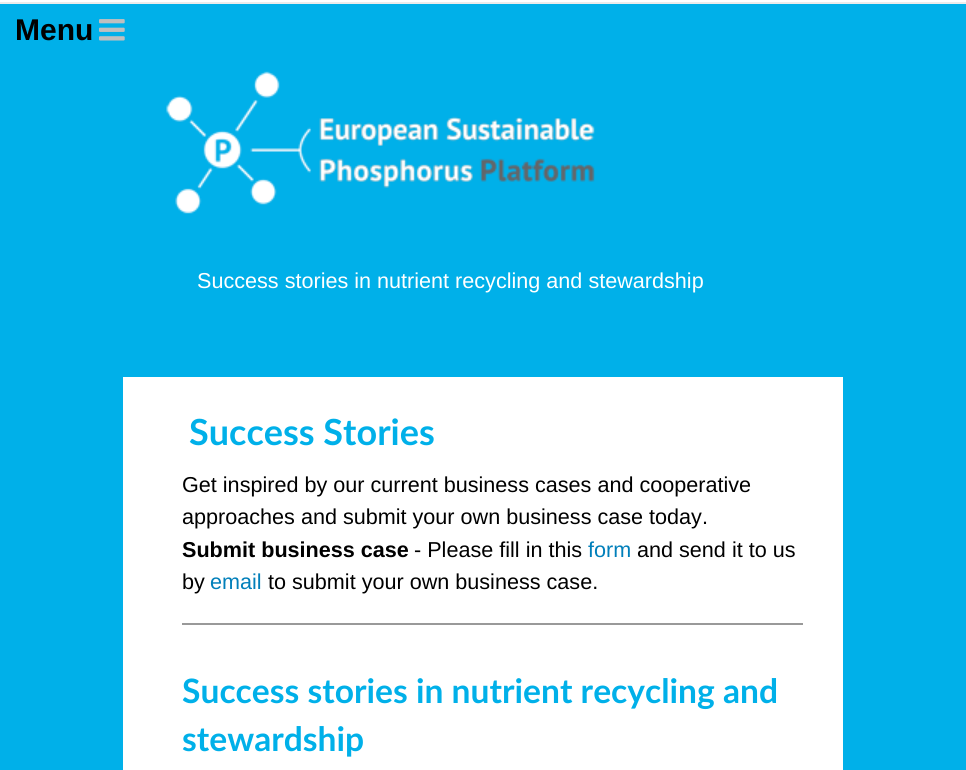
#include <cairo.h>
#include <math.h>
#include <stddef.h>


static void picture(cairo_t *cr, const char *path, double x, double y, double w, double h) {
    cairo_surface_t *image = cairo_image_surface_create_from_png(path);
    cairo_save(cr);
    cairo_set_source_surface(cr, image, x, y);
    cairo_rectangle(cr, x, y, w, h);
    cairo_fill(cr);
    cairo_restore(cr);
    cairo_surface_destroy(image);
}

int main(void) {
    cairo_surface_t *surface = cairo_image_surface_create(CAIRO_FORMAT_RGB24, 966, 770);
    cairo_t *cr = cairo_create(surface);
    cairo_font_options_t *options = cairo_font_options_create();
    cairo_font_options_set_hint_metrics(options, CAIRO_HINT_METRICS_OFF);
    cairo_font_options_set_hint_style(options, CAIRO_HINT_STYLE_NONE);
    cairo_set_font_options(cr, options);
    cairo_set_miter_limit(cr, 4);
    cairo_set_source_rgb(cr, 0, 0.69, 0.914);
    cairo_paint(cr);
    cairo_set_source_rgb(cr, 1, 1, 1);
    cairo_rectangle(cr, 0, 0, 966, 2);
    cairo_fill(cr);
    cairo_set_source_rgb(cr, 0.922, 0.922, 0.922);
    cairo_rectangle(cr, 0, 2, 966, 2);
    cairo_fill(cr);
    cairo_select_font_face(cr, "Liberation Sans", CAIRO_FONT_SLANT_NORMAL, CAIRO_FONT_WEIGHT_BOLD);
    cairo_set_font_size(cr, 30);
    cairo_set_source_rgb(cr, 0, 0, 0);
    cairo_move_to(cr, 15, 40);
    cairo_show_text(cr, "Menu");
    picture(cr, "img1.png", 99, 19, 26, 22);
    picture(cr, "img2.png", 166, 71, 429, 143);
    cairo_select_font_face(cr, "Liberation Sans", CAIRO_FONT_SLANT_NORMAL, CAIRO_FONT_WEIGHT_NORMAL);
    cairo_set_font_size(cr, 21.6);
    cairo_set_source_rgb(cr, 1, 1, 1);
    cairo_move_to(cr, 197, 288);
    cairo_show_text(cr, "Success stories in nutrient recycling and stewardship");
    cairo_rectangle(cr, 123, 377, 720, 393);
    cairo_fill(cr);
    cairo_select_font_face(cr, "Lato", CAIRO_FONT_SLANT_NORMAL, CAIRO_FONT_WEIGHT_BOLD);
    cairo_set_font_size(cr, 36);
    cairo_set_source_rgb(cr, 0, 0.69, 0.914);
    cairo_move_to(cr, 189, 445);
    cairo_show_text(cr, "Success Stories");
    cairo_select_font_face(cr, "Liberation Sans", CAIRO_FONT_SLANT_NORMAL, CAIRO_FONT_WEIGHT_NORMAL);
    cairo_set_font_size(cr, 21.6);
    cairo_set_source_rgb(cr, 0, 0, 0);
    cairo_move_to(cr, 182, 492);
    cairo_show_text(cr, "Get inspired by our current business cases and cooperative");
    cairo_move_to(cr, 182, 524);
    cairo_show_text(cr, "approaches and submit your own business case today.");
    cairo_select_font_face(cr, "Liberation Sans", CAIRO_FONT_SLANT_NORMAL, CAIRO_FONT_WEIGHT_BOLD);
    cairo_move_to(cr, 182, 557);
    cairo_show_text(cr, "Submit business case");
    cairo_select_font_face(cr, "Liberation Sans", CAIRO_FONT_SLANT_NORMAL, CAIRO_FONT_WEIGHT_NORMAL);
    cairo_move_to(cr, 414, 557);
    cairo_show_text(cr, "- Please fill in this");
    cairo_set_source_rgb(cr, 0.004, 0.498, 0.729);
    cairo_move_to(cr, 588, 557);
    cairo_show_text(cr, "form");
    cairo_set_source_rgb(cr, 0, 0, 0);
    cairo_move_to(cr, 637, 557);
    cairo_show_text(cr, "and send it to us");
    cairo_move_to(cr, 182, 589);
    cairo_show_text(cr, "by");
    cairo_set_source_rgb(cr, 0.004, 0.498, 0.729);
    cairo_move_to(cr, 210, 589);
    cairo_show_text(cr, "email");
    cairo_set_source_rgb(cr, 0, 0, 0);
    cairo_move_to(cr, 268, 589);
    cairo_show_text(cr, "to submit your own business case.");
    cairo_set_source_rgb(cr, 0.6, 0.6, 0.6);
    cairo_rectangle(cr, 182, 623, 621, 2);
    cairo_fill(cr);
    cairo_select_font_face(cr, "Lato", CAIRO_FONT_SLANT_NORMAL, CAIRO_FONT_WEIGHT_BOLD);
    cairo_set_font_size(cr, 33.6);
    cairo_set_source_rgb(cr, 0, 0.69, 0.914);
    cairo_move_to(cr, 182, 703);
    cairo_show_text(cr, "Success stories in nutrient recycling and");
    cairo_move_to(cr, 182, 751);
    cairo_show_text(cr, "stewardship");
    cairo_surface_write_to_png(surface, "page.png");
    cairo_font_options_destroy(options);
    cairo_destroy(cr);
    cairo_surface_destroy(surface);
    return 0;
}
